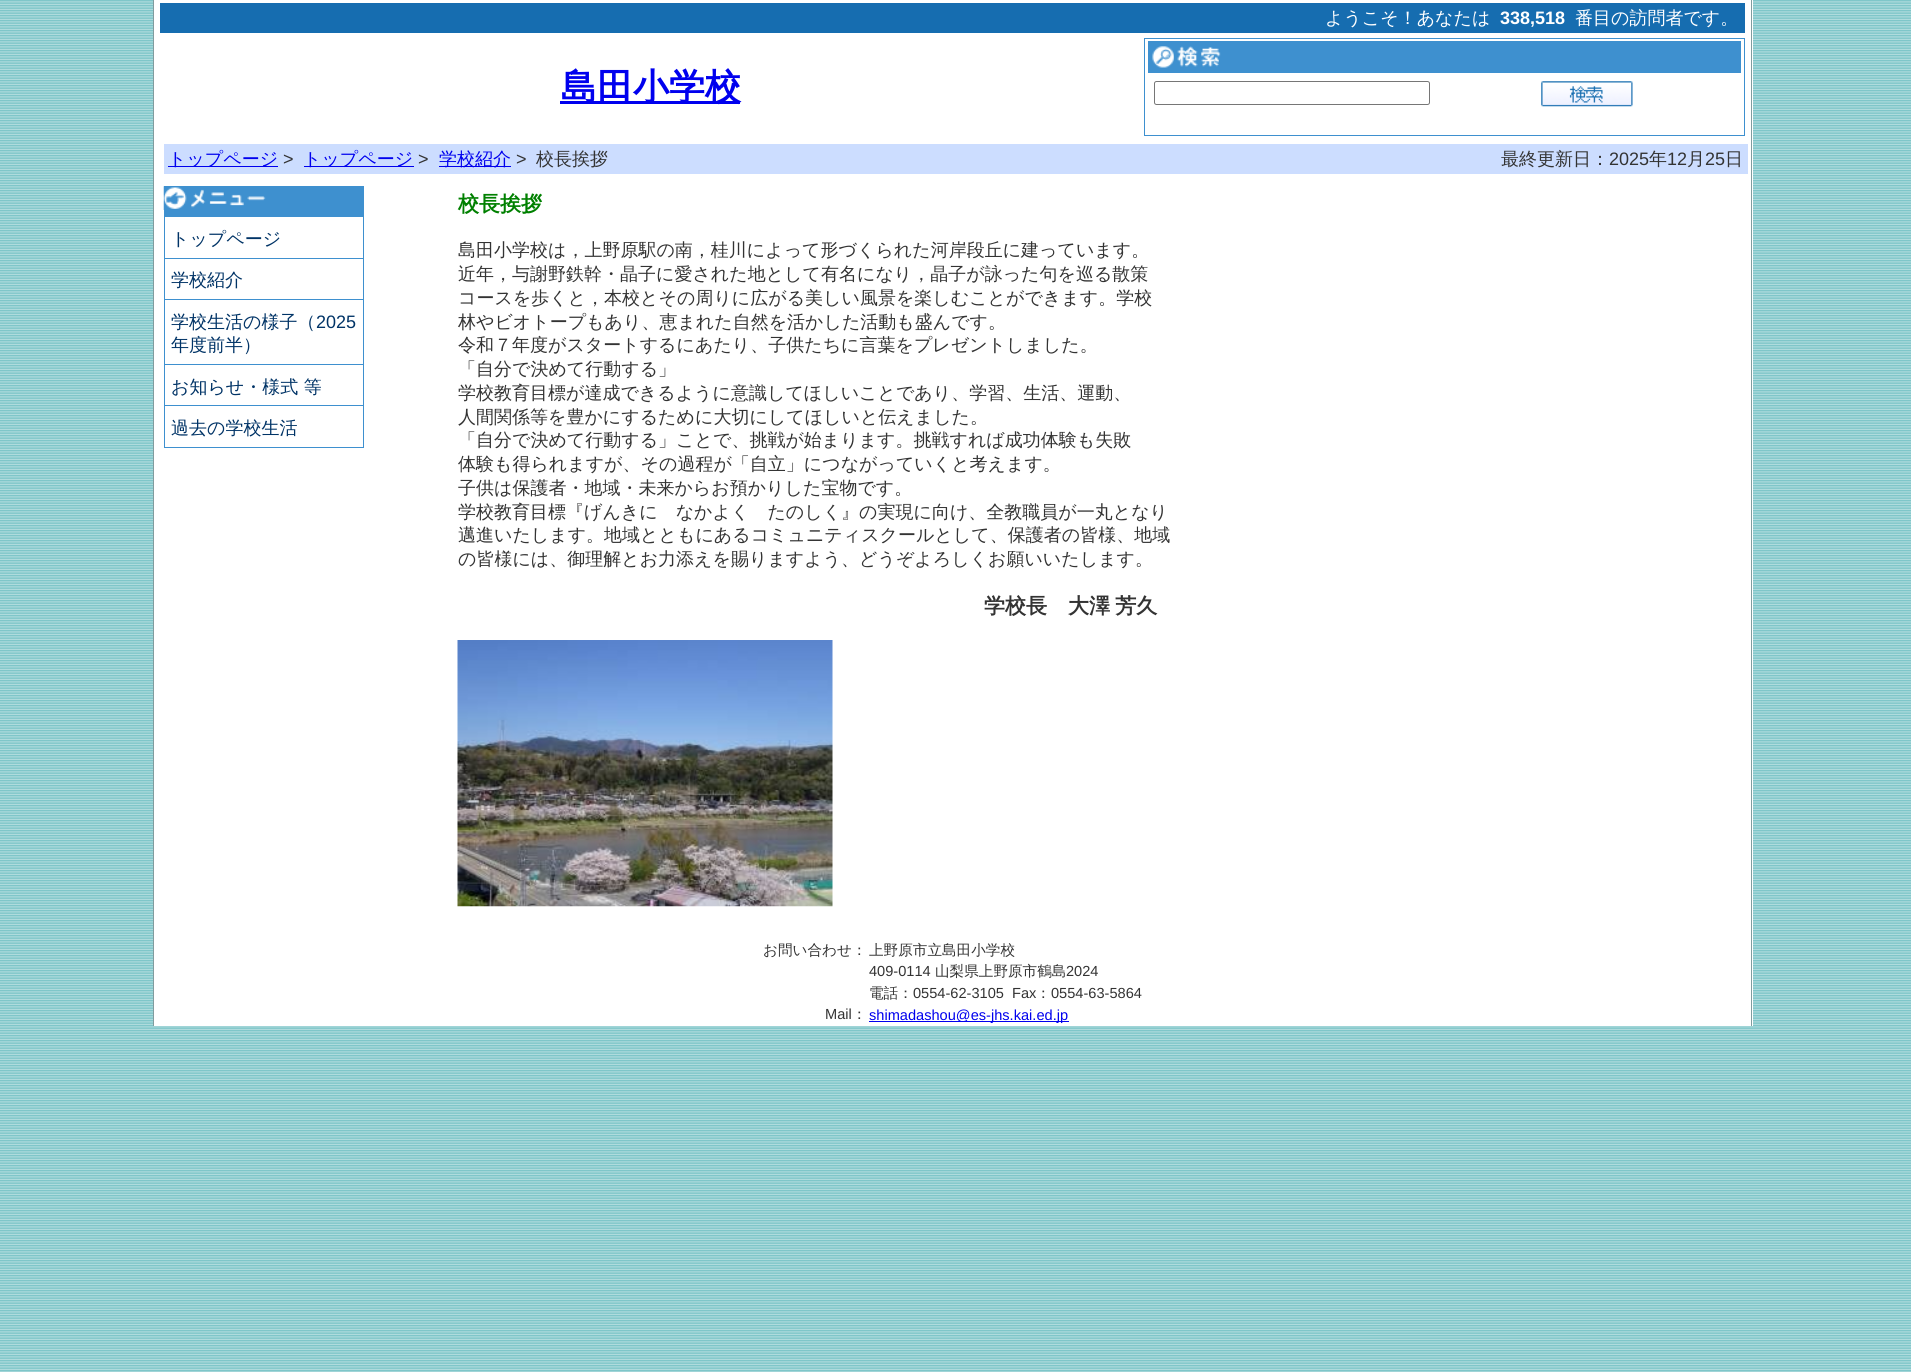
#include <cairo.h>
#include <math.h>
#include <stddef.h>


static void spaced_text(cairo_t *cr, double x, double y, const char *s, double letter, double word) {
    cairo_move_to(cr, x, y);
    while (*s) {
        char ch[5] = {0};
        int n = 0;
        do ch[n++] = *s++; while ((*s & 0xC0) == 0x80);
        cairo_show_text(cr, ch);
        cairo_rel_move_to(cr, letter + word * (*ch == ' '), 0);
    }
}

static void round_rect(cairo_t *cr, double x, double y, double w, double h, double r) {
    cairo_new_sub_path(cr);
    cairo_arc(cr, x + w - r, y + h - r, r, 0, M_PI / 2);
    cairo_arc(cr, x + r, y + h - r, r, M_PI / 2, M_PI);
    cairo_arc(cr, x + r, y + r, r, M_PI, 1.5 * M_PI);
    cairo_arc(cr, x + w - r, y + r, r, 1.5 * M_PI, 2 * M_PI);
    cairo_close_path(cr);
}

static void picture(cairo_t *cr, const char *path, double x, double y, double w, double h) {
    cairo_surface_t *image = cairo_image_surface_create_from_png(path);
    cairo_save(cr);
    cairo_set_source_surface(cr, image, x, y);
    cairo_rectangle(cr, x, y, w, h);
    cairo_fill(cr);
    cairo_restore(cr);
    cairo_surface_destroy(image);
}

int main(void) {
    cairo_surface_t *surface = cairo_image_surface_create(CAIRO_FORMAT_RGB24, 1911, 1372);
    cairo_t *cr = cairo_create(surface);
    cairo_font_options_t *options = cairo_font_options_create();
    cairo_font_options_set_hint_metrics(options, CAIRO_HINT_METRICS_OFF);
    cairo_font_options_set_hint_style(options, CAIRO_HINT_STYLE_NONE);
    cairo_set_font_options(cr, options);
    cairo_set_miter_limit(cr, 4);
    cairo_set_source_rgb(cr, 1, 1, 1);
    cairo_paint(cr);
    picture(cr, "img1.png", 0, 0, 1911, 1372);
    cairo_set_source_rgb(cr, 1, 1, 1);
    cairo_rectangle(cr, 154, 0, 1599, 1026);
    cairo_fill(cr);
    cairo_set_source_rgb(cr, 0.506, 0.612, 0.62);
    cairo_rectangle(cr, 1751, 0, 1, 1026);
    cairo_fill(cr);
    cairo_rectangle(cr, 153, 0, 1, 1026);
    cairo_fill(cr);
    cairo_set_source_rgb(cr, 0.086, 0.427, 0.69);
    cairo_rectangle(cr, 160, 3, 1585, 30);
    cairo_fill(cr);
    cairo_select_font_face(cr, "WenQuanYi Zen Hei Medium", CAIRO_FONT_SLANT_NORMAL, CAIRO_FONT_WEIGHT_NORMAL);
    cairo_set_font_size(cr, 18);
    cairo_set_source_rgb(cr, 1, 1, 1);
    cairo_move_to(cr, 1325, 24);
    cairo_show_text(cr, "ようこそ！あなたは");
    cairo_select_font_face(cr, "Liberation Sans", CAIRO_FONT_SLANT_NORMAL, CAIRO_FONT_WEIGHT_BOLD);
    cairo_move_to(cr, 1500, 24);
    cairo_show_text(cr, "338,518");
    cairo_select_font_face(cr, "WenQuanYi Zen Hei Medium", CAIRO_FONT_SLANT_NORMAL, CAIRO_FONT_WEIGHT_NORMAL);
    cairo_move_to(cr, 1575, 24);
    cairo_show_text(cr, "番目の訪問者です。");
    cairo_set_source_rgb(cr, 0, 0, 0.933);
    cairo_rectangle(cr, 560, 101, 180, 3);
    cairo_fill(cr);
    cairo_select_font_face(cr, "WenQuanYi Zen Hei", CAIRO_FONT_SLANT_NORMAL, CAIRO_FONT_WEIGHT_BOLD);
    cairo_set_font_size(cr, 36);
    cairo_move_to(cr, 561, 99);
    cairo_show_text(cr, "島田小学校");
    cairo_rectangle(cr, 1144.5, 38.5, 600, 97);
    cairo_set_source_rgb(cr, 0.243, 0.565, 0.812);
    cairo_set_line_width(cr, 1);
    cairo_stroke(cr);
    cairo_rectangle(cr, 1148, 41, 593, 32);
    cairo_fill(cr);
    picture(cr, "img2.png", 1152, 46, 69, 22);
    round_rect(cr, 1154.5, 81.5, 275, 23, 2);
    cairo_set_source_rgb(cr, 0.463, 0.463, 0.463);
    cairo_stroke(cr);
    picture(cr, "img3.png", 1541, 81, 92, 26);
    cairo_set_source_rgb(cr, 0.8, 0.867, 1);
    cairo_rectangle(cr, 164, 144, 1584, 30);
    cairo_fill(cr);
    cairo_set_source_rgb(cr, 0, 0, 0.933);
    cairo_rectangle(cr, 168, 166, 110, 1);
    cairo_fill(cr);
    cairo_select_font_face(cr, "WenQuanYi Zen Hei Medium", CAIRO_FONT_SLANT_NORMAL, CAIRO_FONT_WEIGHT_NORMAL);
    cairo_set_font_size(cr, 18);
    cairo_move_to(cr, 168, 165);
    cairo_show_text(cr, "トップページ");
    cairo_select_font_face(cr, "Liberation Sans", CAIRO_FONT_SLANT_NORMAL, CAIRO_FONT_WEIGHT_NORMAL);
    cairo_set_source_rgb(cr, 0.2, 0.2, 0.2);
    cairo_move_to(cr, 283, 165);
    cairo_show_text(cr, ">");
    cairo_set_source_rgb(cr, 0, 0, 0.933);
    cairo_rectangle(cr, 304, 166, 110, 1);
    cairo_fill(cr);
    cairo_select_font_face(cr, "WenQuanYi Zen Hei Medium", CAIRO_FONT_SLANT_NORMAL, CAIRO_FONT_WEIGHT_NORMAL);
    cairo_move_to(cr, 303, 165);
    cairo_show_text(cr, "トップページ");
    cairo_select_font_face(cr, "Liberation Sans", CAIRO_FONT_SLANT_NORMAL, CAIRO_FONT_WEIGHT_NORMAL);
    cairo_set_source_rgb(cr, 0.2, 0.2, 0.2);
    cairo_move_to(cr, 418, 165);
    cairo_show_text(cr, ">");
    cairo_set_source_rgb(cr, 0, 0, 0.933);
    cairo_rectangle(cr, 439, 166, 72, 1);
    cairo_fill(cr);
    cairo_select_font_face(cr, "WenQuanYi Zen Hei Medium", CAIRO_FONT_SLANT_NORMAL, CAIRO_FONT_WEIGHT_NORMAL);
    cairo_move_to(cr, 439, 165);
    cairo_show_text(cr, "学校紹介");
    cairo_select_font_face(cr, "Liberation Sans", CAIRO_FONT_SLANT_NORMAL, CAIRO_FONT_WEIGHT_NORMAL);
    cairo_set_source_rgb(cr, 0.2, 0.2, 0.2);
    cairo_move_to(cr, 516, 165);
    cairo_show_text(cr, ">");
    cairo_select_font_face(cr, "WenQuanYi Zen Hei Medium", CAIRO_FONT_SLANT_NORMAL, CAIRO_FONT_WEIGHT_NORMAL);
    cairo_move_to(cr, 536, 165);
    cairo_show_text(cr, "校長挨拶");
    cairo_move_to(cr, 1501, 165);
    cairo_show_text(cr, "最終更新日：");
    cairo_select_font_face(cr, "Liberation Sans", CAIRO_FONT_SLANT_NORMAL, CAIRO_FONT_WEIGHT_NORMAL);
    cairo_move_to(cr, 1609, 165);
    cairo_show_text(cr, "2025");
    cairo_select_font_face(cr, "WenQuanYi Zen Hei Medium", CAIRO_FONT_SLANT_NORMAL, CAIRO_FONT_WEIGHT_NORMAL);
    cairo_move_to(cr, 1649, 165);
    cairo_show_text(cr, "年");
    cairo_select_font_face(cr, "Liberation Sans", CAIRO_FONT_SLANT_NORMAL, CAIRO_FONT_WEIGHT_NORMAL);
    cairo_move_to(cr, 1667, 165);
    cairo_show_text(cr, "12");
    cairo_select_font_face(cr, "WenQuanYi Zen Hei Medium", CAIRO_FONT_SLANT_NORMAL, CAIRO_FONT_WEIGHT_NORMAL);
    cairo_move_to(cr, 1687, 165);
    cairo_show_text(cr, "月");
    cairo_select_font_face(cr, "Liberation Sans", CAIRO_FONT_SLANT_NORMAL, CAIRO_FONT_WEIGHT_NORMAL);
    cairo_move_to(cr, 1705, 165);
    cairo_show_text(cr, "25");
    cairo_select_font_face(cr, "WenQuanYi Zen Hei Medium", CAIRO_FONT_SLANT_NORMAL, CAIRO_FONT_WEIGHT_NORMAL);
    cairo_move_to(cr, 1725, 165);
    cairo_show_text(cr, "日");
    cairo_set_source_rgb(cr, 0.243, 0.565, 0.812);
    cairo_rectangle(cr, 164, 186, 200, 30);
    cairo_fill(cr);
    picture(cr, "img4.png", 163, 186, 103, 24);
    cairo_rectangle(cr, 164.5, 216.5, 199, 42);
    cairo_stroke(cr);
    cairo_set_source_rgb(cr, 0, 0.2, 0.4);
    cairo_move_to(cr, 171, 245);
    cairo_show_text(cr, "トップページ");
    cairo_rectangle(cr, 164.5, 258.5, 199, 41);
    cairo_set_source_rgb(cr, 0.243, 0.565, 0.812);
    cairo_stroke(cr);
    cairo_set_source_rgb(cr, 0, 0.2, 0.4);
    cairo_move_to(cr, 171, 286);
    cairo_show_text(cr, "学校紹介");
    cairo_rectangle(cr, 164.5, 299.5, 199, 65);
    cairo_set_source_rgb(cr, 0.243, 0.565, 0.812);
    cairo_stroke(cr);
    cairo_set_source_rgb(cr, 0, 0.2, 0.4);
    cairo_move_to(cr, 171, 328);
    cairo_show_text(cr, "学校生活の様子（");
    cairo_select_font_face(cr, "Liberation Sans", CAIRO_FONT_SLANT_NORMAL, CAIRO_FONT_WEIGHT_NORMAL);
    cairo_move_to(cr, 316, 328);
    cairo_show_text(cr, "2025");
    cairo_select_font_face(cr, "WenQuanYi Zen Hei Medium", CAIRO_FONT_SLANT_NORMAL, CAIRO_FONT_WEIGHT_NORMAL);
    cairo_move_to(cr, 171, 351);
    cairo_show_text(cr, "年度前半）");
    cairo_rectangle(cr, 164.5, 364.5, 199, 41);
    cairo_set_source_rgb(cr, 0.243, 0.565, 0.812);
    cairo_stroke(cr);
    cairo_set_source_rgb(cr, 0, 0.2, 0.4);
    cairo_move_to(cr, 171, 393);
    cairo_show_text(cr, "お知らせ・様式 等");
    cairo_rectangle(cr, 164.5, 405.5, 199, 42);
    cairo_set_source_rgb(cr, 0.243, 0.565, 0.812);
    cairo_stroke(cr);
    cairo_set_source_rgb(cr, 0, 0.2, 0.4);
    cairo_move_to(cr, 171, 434);
    cairo_show_text(cr, "過去の学校生活");
    cairo_select_font_face(cr, "WenQuanYi Zen Hei", CAIRO_FONT_SLANT_NORMAL, CAIRO_FONT_WEIGHT_BOLD);
    cairo_set_font_size(cr, 21);
    cairo_set_source_rgb(cr, 0, 0.502, 0);
    cairo_move_to(cr, 458, 211);
    cairo_show_text(cr, "校長挨拶");
    cairo_select_font_face(cr, "WenQuanYi Zen Hei Medium", CAIRO_FONT_SLANT_NORMAL, CAIRO_FONT_WEIGHT_NORMAL);
    cairo_set_font_size(cr, 18);
    cairo_set_source_rgb(cr, 0.2, 0.2, 0.2);
    cairo_move_to(cr, 458, 256);
    cairo_show_text(cr, "島田小学校は，上野原駅の南，桂川によって形づくられた河岸段丘に建っています。");
    cairo_move_to(cr, 458, 280);
    cairo_show_text(cr, "近年，与謝野鉄幹・晶子に愛された地として有名になり，晶子が詠った句を巡る散策");
    cairo_move_to(cr, 458, 304);
    cairo_show_text(cr, "コースを歩くと，本校とその周りに広がる美しい風景を楽しむことができます。学校");
    cairo_move_to(cr, 458, 328);
    cairo_show_text(cr, "林やビオトープもあり、恵まれた自然を活かした活動も盛んです。");
    cairo_move_to(cr, 458, 351);
    cairo_show_text(cr, "令和７年度がスタートするにあたり、子供たちに言葉をプレゼントしました。");
    cairo_move_to(cr, 458, 375);
    cairo_show_text(cr, "「自分で決めて行動する」");
    cairo_move_to(cr, 458, 399);
    cairo_show_text(cr, "学校教育目標が達成できるように意識してほしいことであり、学習、生活、運動、");
    cairo_move_to(cr, 458, 423);
    cairo_show_text(cr, "人間関係等を豊かにするために大切にしてほしいと伝えました。");
    cairo_move_to(cr, 458, 446);
    cairo_show_text(cr, "「自分で決めて行動する」ことで、挑戦が始まります。挑戦すれば成功体験も失敗");
    cairo_move_to(cr, 458, 470);
    cairo_show_text(cr, "体験も得られますが、その過程が「自立」につながっていくと考えます。");
    cairo_move_to(cr, 458, 494);
    cairo_show_text(cr, "子供は保護者・地域・未来からお預かりした宝物です。");
    cairo_move_to(cr, 458, 518);
    cairo_show_text(cr, "学校教育目標『げんきに　なかよく　たのしく』の実現に向け、全教職員が一丸となり");
    cairo_move_to(cr, 458, 541);
    cairo_show_text(cr, "邁進いたします。地域とともにあるコミュニティスクールとして、保護者の皆様、地域");
    cairo_move_to(cr, 458, 565);
    cairo_show_text(cr, "の皆様には、御理解とお力添えを賜りますよう、どうぞよろしくお願いいたします。");
    cairo_select_font_face(cr, "WenQuanYi Zen Hei", CAIRO_FONT_SLANT_NORMAL, CAIRO_FONT_WEIGHT_BOLD);
    cairo_set_font_size(cr, 21);
    spaced_text(cr, 984, 613, "学校長　大澤 芳久", 0, -1);
    picture(cr, "img5.png", 457, 640, 376, 267);
    cairo_select_font_face(cr, "WenQuanYi Zen Hei Medium", CAIRO_FONT_SLANT_NORMAL, CAIRO_FONT_WEIGHT_NORMAL);
    cairo_set_font_size(cr, 14.6);
    cairo_move_to(cr, 763, 955);
    cairo_show_text(cr, "お問い合わせ：");
    cairo_move_to(cr, 869, 955);
    cairo_show_text(cr, "上野原市立島田小学校");
    cairo_select_font_face(cr, "Liberation Sans", CAIRO_FONT_SLANT_NORMAL, CAIRO_FONT_WEIGHT_NORMAL);
    cairo_move_to(cr, 869, 976);
    cairo_show_text(cr, "409-0114");
    cairo_select_font_face(cr, "WenQuanYi Zen Hei Medium", CAIRO_FONT_SLANT_NORMAL, CAIRO_FONT_WEIGHT_NORMAL);
    cairo_move_to(cr, 935, 976);
    cairo_show_text(cr, "山梨県上野原市鶴島");
    cairo_select_font_face(cr, "Liberation Sans", CAIRO_FONT_SLANT_NORMAL, CAIRO_FONT_WEIGHT_NORMAL);
    cairo_move_to(cr, 1066, 976);
    cairo_show_text(cr, "2024");
    cairo_select_font_face(cr, "WenQuanYi Zen Hei Medium", CAIRO_FONT_SLANT_NORMAL, CAIRO_FONT_WEIGHT_NORMAL);
    cairo_move_to(cr, 869, 998);
    cairo_show_text(cr, "電話：");
    cairo_select_font_face(cr, "Liberation Sans", CAIRO_FONT_SLANT_NORMAL, CAIRO_FONT_WEIGHT_NORMAL);
    cairo_move_to(cr, 913, 998);
    cairo_show_text(cr, "0554-62-3105  Fax");
    cairo_select_font_face(cr, "WenQuanYi Zen Hei Medium", CAIRO_FONT_SLANT_NORMAL, CAIRO_FONT_WEIGHT_NORMAL);
    cairo_move_to(cr, 1036, 998);
    cairo_show_text(cr, "：");
    cairo_select_font_face(cr, "Liberation Sans", CAIRO_FONT_SLANT_NORMAL, CAIRO_FONT_WEIGHT_NORMAL);
    cairo_move_to(cr, 1051, 998);
    cairo_show_text(cr, "0554-63-5864");
    cairo_move_to(cr, 825, 1019);
    cairo_show_text(cr, "Mail");
    cairo_select_font_face(cr, "WenQuanYi Zen Hei Medium", CAIRO_FONT_SLANT_NORMAL, CAIRO_FONT_WEIGHT_NORMAL);
    cairo_move_to(cr, 852, 1019);
    cairo_show_text(cr, "：");
    cairo_set_source_rgb(cr, 0, 0, 0.933);
    cairo_rectangle(cr, 869, 1021, 200, 1);
    cairo_fill(cr);
    cairo_select_font_face(cr, "Liberation Sans", CAIRO_FONT_SLANT_NORMAL, CAIRO_FONT_WEIGHT_NORMAL);
    cairo_move_to(cr, 869, 1020);
    cairo_show_text(cr, "shimadashou@es-jhs.kai.ed.jp");
    cairo_surface_write_to_png(surface, "page.png");
    cairo_font_options_destroy(options);
    cairo_destroy(cr);
    cairo_surface_destroy(surface);
    return 0;
}
